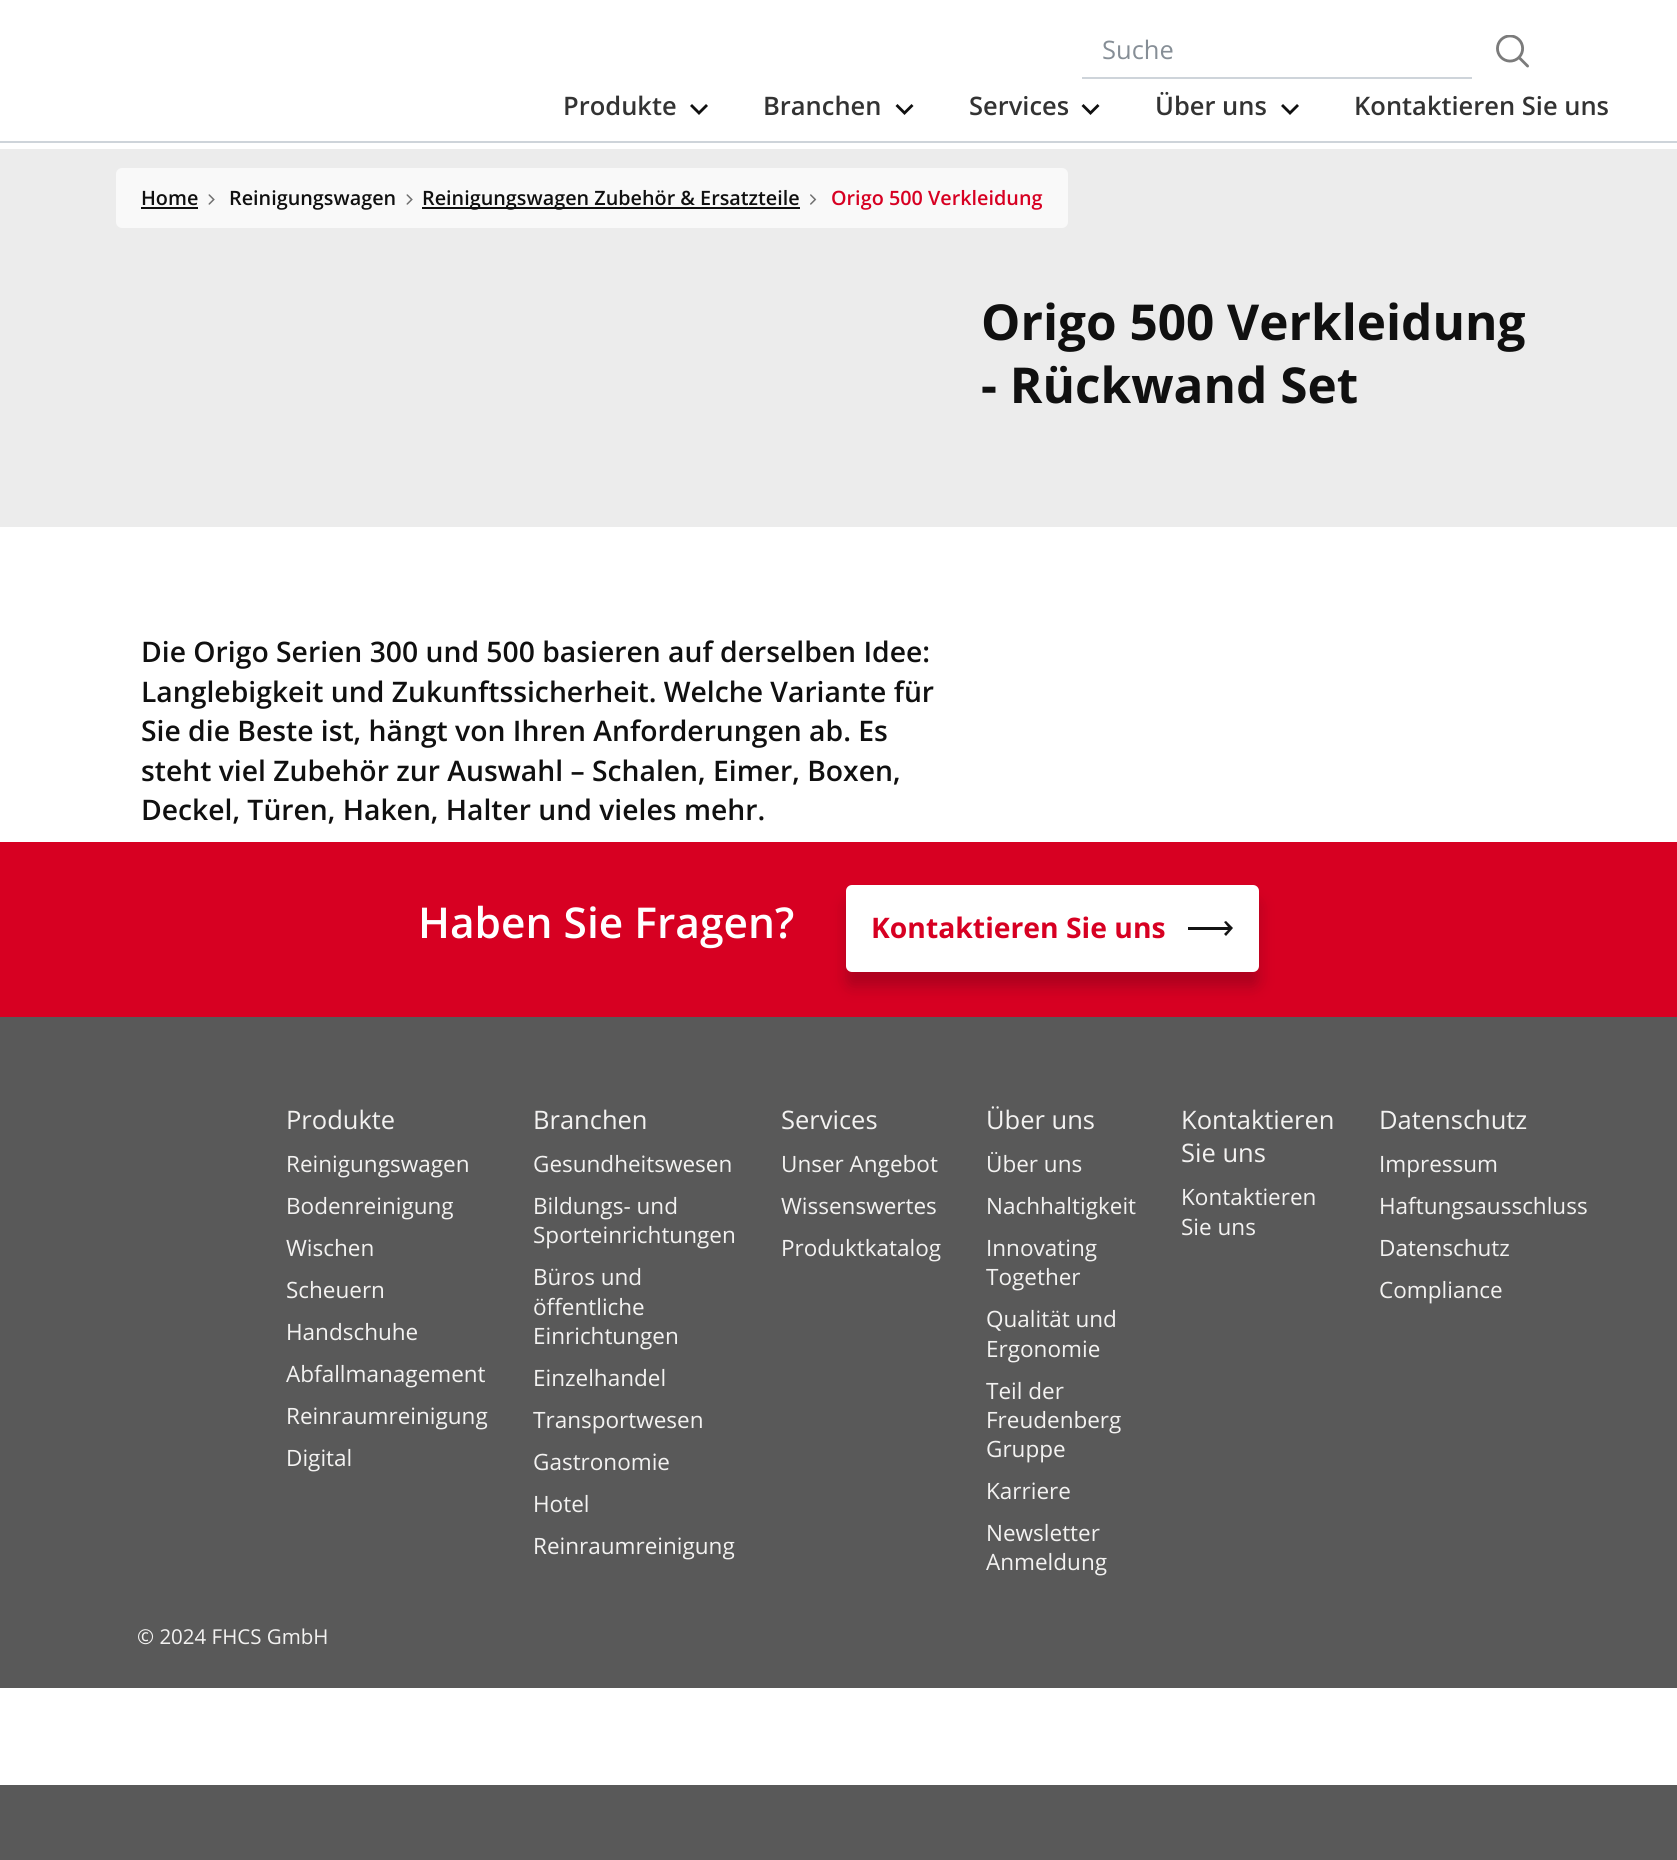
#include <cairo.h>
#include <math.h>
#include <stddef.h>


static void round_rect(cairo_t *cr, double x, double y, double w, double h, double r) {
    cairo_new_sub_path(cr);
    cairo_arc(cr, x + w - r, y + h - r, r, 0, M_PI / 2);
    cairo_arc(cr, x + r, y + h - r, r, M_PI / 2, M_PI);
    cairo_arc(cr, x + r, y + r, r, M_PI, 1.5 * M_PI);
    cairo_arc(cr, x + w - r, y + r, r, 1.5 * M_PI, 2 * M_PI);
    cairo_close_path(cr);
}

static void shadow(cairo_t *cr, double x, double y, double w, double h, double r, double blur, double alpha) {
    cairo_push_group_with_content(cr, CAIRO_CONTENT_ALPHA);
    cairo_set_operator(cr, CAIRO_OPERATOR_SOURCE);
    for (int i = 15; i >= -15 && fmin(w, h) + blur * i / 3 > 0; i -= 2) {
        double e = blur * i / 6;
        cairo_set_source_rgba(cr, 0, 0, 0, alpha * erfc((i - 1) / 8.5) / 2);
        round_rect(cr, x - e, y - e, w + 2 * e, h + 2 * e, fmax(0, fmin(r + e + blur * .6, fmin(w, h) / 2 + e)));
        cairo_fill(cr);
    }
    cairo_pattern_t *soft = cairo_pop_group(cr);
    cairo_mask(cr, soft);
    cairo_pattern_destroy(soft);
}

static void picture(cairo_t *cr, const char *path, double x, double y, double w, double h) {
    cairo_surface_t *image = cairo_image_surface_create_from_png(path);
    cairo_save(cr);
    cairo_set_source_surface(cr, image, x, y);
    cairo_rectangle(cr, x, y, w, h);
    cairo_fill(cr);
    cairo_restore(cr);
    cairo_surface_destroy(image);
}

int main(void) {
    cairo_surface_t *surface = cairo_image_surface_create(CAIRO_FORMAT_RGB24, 1677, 1860);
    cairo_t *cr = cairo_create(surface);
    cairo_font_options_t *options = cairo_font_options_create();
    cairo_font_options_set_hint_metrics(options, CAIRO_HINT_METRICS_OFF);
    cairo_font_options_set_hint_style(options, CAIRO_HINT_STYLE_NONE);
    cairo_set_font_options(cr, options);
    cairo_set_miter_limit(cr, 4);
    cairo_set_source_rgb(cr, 1, 1, 1);
    cairo_paint(cr);
    cairo_set_source_rgb(cr, 0.808, 0.831, 0.855);
    cairo_rectangle(cr, 0, 141, 1677, 2);
    cairo_fill(cr);
    cairo_rectangle(cr, 1082, 77, 390, 2);
    cairo_fill(cr);
    cairo_select_font_face(cr, "Open Sans", CAIRO_FONT_SLANT_NORMAL, CAIRO_FONT_WEIGHT_NORMAL);
    cairo_set_font_size(cr, 25.5);
    cairo_set_source_rgb(cr, 0.525, 0.557, 0.588);
    cairo_move_to(cr, 1102, 59);
    cairo_show_text(cr, "Suche");
    picture(cr, "img1.png", 1496, 35, 33, 33);
    cairo_select_font_face(cr, "Open Sans SemiBold", CAIRO_FONT_SLANT_NORMAL, CAIRO_FONT_WEIGHT_NORMAL);
    cairo_set_source_rgb(cr, 0.2, 0.2, 0.2);
    cairo_move_to(cr, 563, 115);
    cairo_show_text(cr, "Produkte");
    cairo_set_source_rgb(cr, 0.063, 0.063, 0.063);
    cairo_new_path(cr);
    cairo_move_to(cr, 692, 104);
    cairo_line_to(cr, 699, 111);
    cairo_line_to(cr, 706, 104);
    cairo_line_to(cr, 708, 106);
    cairo_line_to(cr, 699, 115);
    cairo_line_to(cr, 690, 106);
    cairo_close_path(cr);
    cairo_fill(cr);
    cairo_set_source_rgb(cr, 0.2, 0.2, 0.2);
    cairo_move_to(cr, 763, 115);
    cairo_show_text(cr, "Branchen");
    cairo_set_source_rgb(cr, 0.063, 0.063, 0.063);
    cairo_new_path(cr);
    cairo_move_to(cr, 897.5, 104);
    cairo_line_to(cr, 904.5, 111);
    cairo_line_to(cr, 911.5, 104);
    cairo_line_to(cr, 913.5, 106);
    cairo_line_to(cr, 904.5, 115);
    cairo_line_to(cr, 895.5, 106);
    cairo_close_path(cr);
    cairo_fill(cr);
    cairo_set_source_rgb(cr, 0.2, 0.2, 0.2);
    cairo_move_to(cr, 969, 115);
    cairo_show_text(cr, "Services");
    cairo_set_source_rgb(cr, 0.063, 0.063, 0.063);
    cairo_new_path(cr);
    cairo_move_to(cr, 1083.5, 104);
    cairo_line_to(cr, 1090.5, 111);
    cairo_line_to(cr, 1097.5, 104);
    cairo_line_to(cr, 1099.5, 106);
    cairo_line_to(cr, 1090.5, 115);
    cairo_line_to(cr, 1081.5, 106);
    cairo_close_path(cr);
    cairo_fill(cr);
    cairo_set_source_rgb(cr, 0.2, 0.2, 0.2);
    cairo_move_to(cr, 1155, 115);
    cairo_show_text(cr, "Über uns");
    cairo_set_source_rgb(cr, 0.063, 0.063, 0.063);
    cairo_new_path(cr);
    cairo_move_to(cr, 1283, 104);
    cairo_line_to(cr, 1290, 111);
    cairo_line_to(cr, 1297, 104);
    cairo_line_to(cr, 1299, 106);
    cairo_line_to(cr, 1290, 115);
    cairo_line_to(cr, 1281, 106);
    cairo_close_path(cr);
    cairo_fill(cr);
    cairo_set_source_rgb(cr, 0.2, 0.2, 0.2);
    cairo_move_to(cr, 1354, 115);
    cairo_show_text(cr, "Kontaktieren Sie uns");
    cairo_set_source_rgb(cr, 0.925, 0.925, 0.925);
    cairo_rectangle(cr, 0, 149, 1677, 378);
    cairo_fill(cr);
    cairo_set_source_rgb(cr, 0.976, 0.976, 0.976);
    round_rect(cr, 116, 168, 952, 60, 6);
    cairo_fill(cr);
    cairo_set_font_size(cr, 19.8);
    cairo_set_source_rgb(cr, 0.063, 0.063, 0.063);
    cairo_move_to(cr, 141, 205);
    cairo_show_text(cr, "Home");
    cairo_rectangle(cr, 141, 207, 57, 2);
    cairo_fill(cr);
    picture(cr, "img2.png", 208, 194, 7, 11);
    cairo_move_to(cr, 229, 205);
    cairo_show_text(cr, "Reinigungswagen");
    picture(cr, "img2.png", 406, 194, 7, 11);
    cairo_rectangle(cr, 422, 207, 378, 2);
    cairo_fill(cr);
    cairo_move_to(cr, 422, 205);
    cairo_show_text(cr, "Reinigungswagen Zubehör & Ersatzteile");
    picture(cr, "img3.png", 810, 194, 7, 11);
    cairo_set_source_rgb(cr, 0.843, 0, 0.133);
    cairo_move_to(cr, 831, 205);
    cairo_show_text(cr, "Origo 500 Verkleidung");
    cairo_select_font_face(cr, "Open Sans", CAIRO_FONT_SLANT_NORMAL, CAIRO_FONT_WEIGHT_BOLD);
    cairo_set_font_size(cr, 49.5);
    cairo_set_source_rgb(cr, 0.063, 0.063, 0.063);
    cairo_move_to(cr, 981, 340);
    cairo_show_text(cr, "Origo 500 Verkleidung");
    cairo_move_to(cr, 981, 403);
    cairo_show_text(cr, "- Rückwand Set");
    cairo_select_font_face(cr, "Open Sans SemiBold", CAIRO_FONT_SLANT_NORMAL, CAIRO_FONT_WEIGHT_NORMAL);
    cairo_set_font_size(cr, 28.3);
    cairo_move_to(cr, 141, 662);
    cairo_show_text(cr, "Die Origo Serien 300 und 500 basieren auf derselben Idee:");
    cairo_move_to(cr, 141, 702);
    cairo_show_text(cr, "Langlebigkeit und Zukunftssicherheit. Welche Variante für");
    cairo_move_to(cr, 141, 741);
    cairo_show_text(cr, "Sie die Beste ist, hängt von Ihren Anforderungen ab. Es");
    cairo_move_to(cr, 141, 781);
    cairo_show_text(cr, "steht viel Zubehör zur Auswahl – Schalen, Eimer, Boxen,");
    cairo_move_to(cr, 141, 820);
    cairo_show_text(cr, "Deckel, Türen, Haken, Halter und vieles mehr.");
    cairo_set_source_rgb(cr, 0.843, 0, 0.133);
    cairo_rectangle(cr, 0, 842, 1677, 175);
    cairo_fill(cr);
    cairo_set_font_size(cr, 42.5);
    cairo_set_source_rgb(cr, 1, 1, 1);
    cairo_move_to(cr, 418, 938);
    cairo_show_text(cr, "Haben Sie Fragen?");
    cairo_set_source_rgb(cr, 0.012, 0.035, 0.055);
    shadow(cr, 846, 900, 413, 87, 6, 7.5, 0.2);
    cairo_set_source_rgb(cr, 1, 1, 1);
    round_rect(cr, 847.5, 886.5, 410, 84, 4.5);
    cairo_fill_preserve(cr);
    cairo_set_line_width(cr, 3);
    cairo_stroke(cr);
    cairo_select_font_face(cr, "Open Sans", CAIRO_FONT_SLANT_NORMAL, CAIRO_FONT_WEIGHT_BOLD);
    cairo_set_font_size(cr, 28.3);
    cairo_set_source_rgb(cr, 0.843, 0, 0.133);
    cairo_move_to(cr, 871, 938);
    cairo_show_text(cr, "Kontaktieren Sie uns");
    cairo_set_source_rgb(cr, 0.082, 0.082, 0.082);
    cairo_new_path(cr);
    cairo_move_to(cr, 1226, 921);
    cairo_line_to(cr, 1224, 922);
    cairo_line_to(cr, 1228, 927);
    cairo_line_to(cr, 1188, 927);
    cairo_line_to(cr, 1188, 930);
    cairo_line_to(cr, 1228, 930);
    cairo_line_to(cr, 1224, 934);
    cairo_line_to(cr, 1226, 936);
    cairo_line_to(cr, 1233, 928);
    cairo_close_path(cr);
    cairo_fill(cr);
    cairo_set_source_rgb(cr, 0.349, 0.349, 0.349);
    cairo_rectangle(cr, 0, 1017, 1677, 671);
    cairo_fill(cr);
    cairo_select_font_face(cr, "Open Sans", CAIRO_FONT_SLANT_NORMAL, CAIRO_FONT_WEIGHT_NORMAL);
    cairo_set_font_size(cr, 25.5);
    cairo_set_source_rgb(cr, 0.953, 0.949, 0.945);
    cairo_move_to(cr, 286, 1129);
    cairo_show_text(cr, "Produkte");
    cairo_set_font_size(cr, 22.5);
    cairo_move_to(cr, 286, 1172);
    cairo_show_text(cr, "Reinigungswagen");
    cairo_move_to(cr, 286, 1214);
    cairo_show_text(cr, "Bodenreinigung");
    cairo_move_to(cr, 286, 1256);
    cairo_show_text(cr, "Wischen");
    cairo_move_to(cr, 286, 1298);
    cairo_show_text(cr, "Scheuern");
    cairo_move_to(cr, 286, 1340);
    cairo_show_text(cr, "Handschuhe");
    cairo_move_to(cr, 286, 1382);
    cairo_show_text(cr, "Abfallmanagement");
    cairo_move_to(cr, 286, 1424);
    cairo_show_text(cr, "Reinraumreinigung");
    cairo_move_to(cr, 286, 1466);
    cairo_show_text(cr, "Digital");
    cairo_set_font_size(cr, 25.5);
    cairo_move_to(cr, 533, 1129);
    cairo_show_text(cr, "Branchen");
    cairo_set_font_size(cr, 22.5);
    cairo_move_to(cr, 533, 1172);
    cairo_show_text(cr, "Gesundheitswesen");
    cairo_move_to(cr, 533, 1214);
    cairo_show_text(cr, "Bildungs- und");
    cairo_move_to(cr, 533, 1243);
    cairo_show_text(cr, "Sporteinrichtungen");
    cairo_move_to(cr, 533, 1285);
    cairo_show_text(cr, "Büros und");
    cairo_move_to(cr, 533, 1315);
    cairo_show_text(cr, "öffentliche");
    cairo_move_to(cr, 533, 1344);
    cairo_show_text(cr, "Einrichtungen");
    cairo_move_to(cr, 533, 1386);
    cairo_show_text(cr, "Einzelhandel");
    cairo_move_to(cr, 533, 1428);
    cairo_show_text(cr, "Transportwesen");
    cairo_move_to(cr, 533, 1470);
    cairo_show_text(cr, "Gastronomie");
    cairo_move_to(cr, 533, 1512);
    cairo_show_text(cr, "Hotel");
    cairo_move_to(cr, 533, 1554);
    cairo_show_text(cr, "Reinraumreinigung");
    cairo_set_font_size(cr, 25.5);
    cairo_move_to(cr, 781, 1129);
    cairo_show_text(cr, "Services");
    cairo_set_font_size(cr, 22.5);
    cairo_move_to(cr, 781, 1172);
    cairo_show_text(cr, "Unser Angebot");
    cairo_move_to(cr, 781, 1214);
    cairo_show_text(cr, "Wissenswertes");
    cairo_move_to(cr, 781, 1256);
    cairo_show_text(cr, "Produktkatalog");
    cairo_set_font_size(cr, 25.5);
    cairo_move_to(cr, 986, 1129);
    cairo_show_text(cr, "Über uns");
    cairo_set_font_size(cr, 22.5);
    cairo_move_to(cr, 986, 1172);
    cairo_show_text(cr, "Über uns");
    cairo_move_to(cr, 986, 1214);
    cairo_show_text(cr, "Nachhaltigkeit");
    cairo_move_to(cr, 986, 1256);
    cairo_show_text(cr, "Innovating");
    cairo_move_to(cr, 986, 1285);
    cairo_show_text(cr, "Together");
    cairo_move_to(cr, 986, 1327);
    cairo_show_text(cr, "Qualität und");
    cairo_move_to(cr, 986, 1357);
    cairo_show_text(cr, "Ergonomie");
    cairo_move_to(cr, 986, 1399);
    cairo_show_text(cr, "Teil der");
    cairo_move_to(cr, 986, 1428);
    cairo_show_text(cr, "Freudenberg");
    cairo_move_to(cr, 986, 1457);
    cairo_show_text(cr, "Gruppe");
    cairo_move_to(cr, 986, 1499);
    cairo_show_text(cr, "Karriere");
    cairo_move_to(cr, 986, 1541);
    cairo_show_text(cr, "Newsletter");
    cairo_move_to(cr, 986, 1570);
    cairo_show_text(cr, "Anmeldung");
    cairo_set_font_size(cr, 25.5);
    cairo_move_to(cr, 1181, 1129);
    cairo_show_text(cr, "Kontaktieren");
    cairo_move_to(cr, 1181, 1162);
    cairo_show_text(cr, "Sie uns");
    cairo_set_font_size(cr, 22.5);
    cairo_move_to(cr, 1181, 1205);
    cairo_show_text(cr, "Kontaktieren");
    cairo_move_to(cr, 1181, 1235);
    cairo_show_text(cr, "Sie uns");
    cairo_set_font_size(cr, 25.5);
    cairo_move_to(cr, 1379, 1129);
    cairo_show_text(cr, "Datenschutz");
    cairo_set_font_size(cr, 22.5);
    cairo_move_to(cr, 1379, 1172);
    cairo_show_text(cr, "Impressum");
    cairo_move_to(cr, 1379, 1214);
    cairo_show_text(cr, "Haftungsausschluss");
    cairo_move_to(cr, 1379, 1256);
    cairo_show_text(cr, "Datenschutz");
    cairo_move_to(cr, 1379, 1298);
    cairo_show_text(cr, "Compliance");
    cairo_set_font_size(cr, 20.5);
    cairo_move_to(cr, 137, 1644);
    cairo_show_text(cr, "© 2024 FHCS GmbH");
    cairo_set_source_rgb(cr, 0.349, 0.349, 0.349);
    cairo_rectangle(cr, 0, 1785, 1677, 75);
    cairo_fill(cr);
    cairo_surface_write_to_png(surface, "page.png");
    cairo_font_options_destroy(options);
    cairo_destroy(cr);
    cairo_surface_destroy(surface);
    return 0;
}
